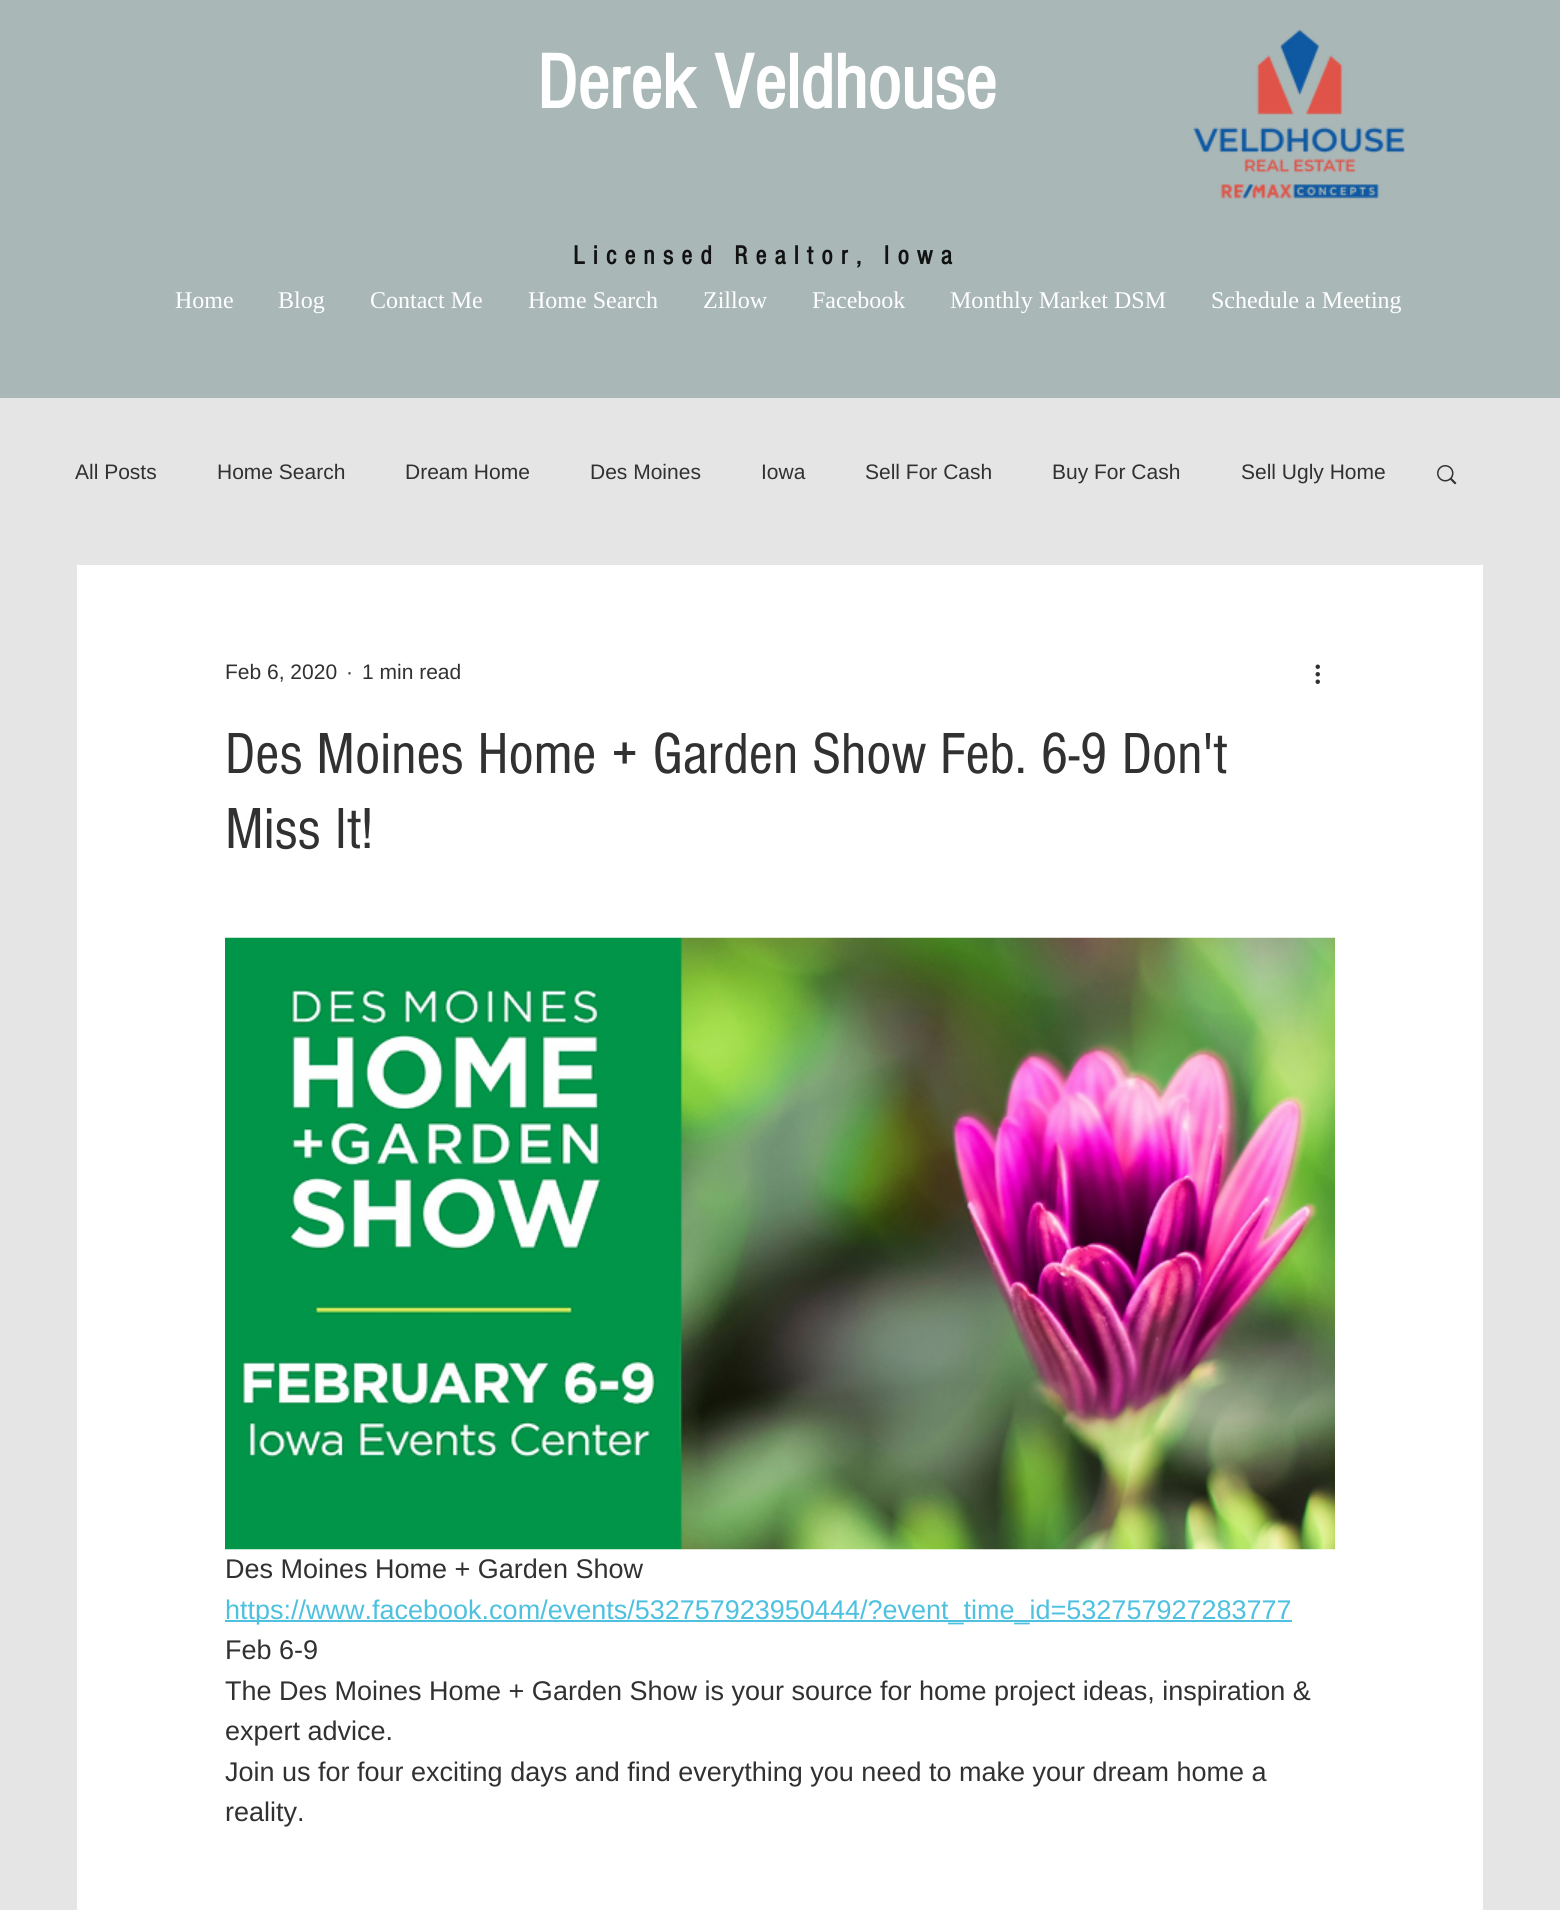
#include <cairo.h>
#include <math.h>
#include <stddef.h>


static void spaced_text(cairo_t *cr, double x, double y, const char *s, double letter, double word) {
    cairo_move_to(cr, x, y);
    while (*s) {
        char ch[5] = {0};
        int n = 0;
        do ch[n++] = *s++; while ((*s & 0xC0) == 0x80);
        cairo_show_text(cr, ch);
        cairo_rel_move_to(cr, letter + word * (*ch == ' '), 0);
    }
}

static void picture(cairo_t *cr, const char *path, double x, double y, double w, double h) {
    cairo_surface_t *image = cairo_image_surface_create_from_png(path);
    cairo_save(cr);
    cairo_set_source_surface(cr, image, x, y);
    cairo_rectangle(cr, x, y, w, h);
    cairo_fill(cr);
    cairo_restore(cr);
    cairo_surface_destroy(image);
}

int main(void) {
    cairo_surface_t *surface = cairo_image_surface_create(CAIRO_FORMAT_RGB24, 1560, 1910);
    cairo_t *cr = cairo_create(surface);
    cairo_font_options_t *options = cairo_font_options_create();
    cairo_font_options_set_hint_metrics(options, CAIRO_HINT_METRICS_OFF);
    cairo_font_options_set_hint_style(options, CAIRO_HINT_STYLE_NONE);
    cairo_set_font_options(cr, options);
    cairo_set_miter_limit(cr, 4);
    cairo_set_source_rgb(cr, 0.894, 0.898, 0.894);
    cairo_paint(cr);
    cairo_set_source_rgb(cr, 0.667, 0.718, 0.718);
    cairo_rectangle(cr, 0, 0, 1560, 398);
    cairo_fill(cr);
    cairo_select_font_face(cr, "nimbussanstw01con", CAIRO_FONT_SLANT_NORMAL, CAIRO_FONT_WEIGHT_BOLD);
    cairo_set_font_size(cr, 79.5);
    cairo_set_source_rgb(cr, 1, 1, 1);
    cairo_move_to(cr, 537, 108);
    cairo_show_text(cr, "Derek Veldhouse");
    picture(cr, "img1.png", 1193, 29, 212, 170);
    cairo_set_font_size(cr, 27);
    cairo_set_source_rgb(cr, 0.071, 0.071, 0.071);
    spaced_text(cr, 573, 264, "Licensed Realtor, Iowa", 8.1, 0);
    cairo_select_font_face(cr, "Liberation Serif", CAIRO_FONT_SLANT_NORMAL, CAIRO_FONT_WEIGHT_NORMAL);
    cairo_set_font_size(cr, 24);
    cairo_set_source_rgb(cr, 1, 1, 1);
    cairo_move_to(cr, 175, 308);
    cairo_show_text(cr, "Home");
    cairo_move_to(cr, 278, 308);
    cairo_show_text(cr, "Blog");
    cairo_move_to(cr, 370, 308);
    cairo_show_text(cr, "Contact Me");
    cairo_move_to(cr, 528, 308);
    cairo_show_text(cr, "Home Search");
    cairo_move_to(cr, 703, 308);
    cairo_show_text(cr, "Zillow");
    cairo_move_to(cr, 812, 308);
    cairo_show_text(cr, "Facebook");
    cairo_move_to(cr, 950, 308);
    cairo_show_text(cr, "Monthly Market DSM");
    cairo_move_to(cr, 1211, 308);
    cairo_show_text(cr, "Schedule a Meeting");
    cairo_select_font_face(cr, "Liberation Sans", CAIRO_FONT_SLANT_NORMAL, CAIRO_FONT_WEIGHT_NORMAL);
    cairo_set_font_size(cr, 21);
    cairo_set_source_rgb(cr, 0.196, 0.192, 0.196);
    cairo_move_to(cr, 75, 479);
    cairo_show_text(cr, "All Posts");
    cairo_move_to(cr, 217, 479);
    cairo_show_text(cr, "Home Search");
    cairo_move_to(cr, 405, 479);
    cairo_show_text(cr, "Dream Home");
    cairo_move_to(cr, 590, 479);
    cairo_show_text(cr, "Des Moines");
    cairo_move_to(cr, 761, 479);
    cairo_show_text(cr, "Iowa");
    cairo_move_to(cr, 865, 479);
    cairo_show_text(cr, "Sell For Cash");
    cairo_move_to(cr, 1052, 479);
    cairo_show_text(cr, "Buy For Cash");
    cairo_move_to(cr, 1241, 479);
    cairo_show_text(cr, "Sell Ugly Home");
    picture(cr, "img2.png", 1437, 465, 20, 20);
    cairo_set_source_rgb(cr, 1, 1, 1);
    cairo_rectangle(cr, 77, 565, 1406, 1345);
    cairo_fill(cr);
    cairo_set_source_rgb(cr, 0.196, 0.192, 0.196);
    cairo_move_to(cr, 225, 679);
    cairo_show_text(cr, "Feb 6, 2020");
    cairo_move_to(cr, 346, 679);
    cairo_show_text(cr, "·");
    cairo_move_to(cr, 362, 679);
    cairo_show_text(cr, "1 min read");
    picture(cr, "img3.png", 1315, 664, 5, 20);
    cairo_select_font_face(cr, "nimbussanstw01con", CAIRO_FONT_SLANT_NORMAL, CAIRO_FONT_WEIGHT_NORMAL);
    cairo_set_font_size(cr, 60);
    cairo_move_to(cr, 225, 773);
    cairo_show_text(cr, "Des Moines Home + Garden Show Feb. 6-9 Don't");
    cairo_move_to(cr, 225, 848);
    cairo_show_text(cr, "Miss It!");
    picture(cr, "img4.png", 225, 937, 1110, 613);
    cairo_select_font_face(cr, "Liberation Sans", CAIRO_FONT_SLANT_NORMAL, CAIRO_FONT_WEIGHT_NORMAL);
    cairo_set_font_size(cr, 27);
    cairo_move_to(cr, 225, 1578);
    cairo_show_text(cr, "Des Moines Home + Garden Show");
    cairo_set_source_rgb(cr, 0.306, 0.753, 0.878);
    cairo_rectangle(cr, 225, 1620, 1067, 2);
    cairo_fill(cr);
    cairo_move_to(cr, 225, 1619);
    cairo_show_text(cr, "https://www.facebook.com/events/532757923950444/?event_time_id=532757927283777");
    cairo_set_source_rgb(cr, 0.196, 0.192, 0.196);
    cairo_move_to(cr, 225, 1659);
    cairo_show_text(cr, "Feb 6-9");
    cairo_move_to(cr, 225, 1700);
    cairo_show_text(cr, "The Des Moines Home + Garden Show is your source for home project ideas, inspiration &");
    cairo_move_to(cr, 225, 1740);
    cairo_show_text(cr, "expert advice.");
    cairo_move_to(cr, 225, 1781);
    cairo_show_text(cr, "Join us for four exciting days and find everything you need to make your dream home a");
    cairo_move_to(cr, 225, 1821);
    cairo_show_text(cr, "reality.");
    cairo_surface_write_to_png(surface, "page.png");
    cairo_font_options_destroy(options);
    cairo_destroy(cr);
    cairo_surface_destroy(surface);
    return 0;
}
